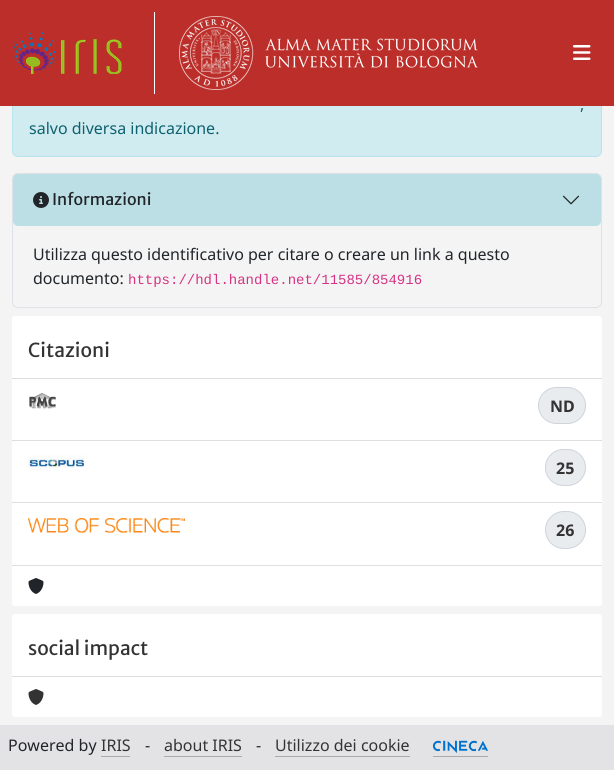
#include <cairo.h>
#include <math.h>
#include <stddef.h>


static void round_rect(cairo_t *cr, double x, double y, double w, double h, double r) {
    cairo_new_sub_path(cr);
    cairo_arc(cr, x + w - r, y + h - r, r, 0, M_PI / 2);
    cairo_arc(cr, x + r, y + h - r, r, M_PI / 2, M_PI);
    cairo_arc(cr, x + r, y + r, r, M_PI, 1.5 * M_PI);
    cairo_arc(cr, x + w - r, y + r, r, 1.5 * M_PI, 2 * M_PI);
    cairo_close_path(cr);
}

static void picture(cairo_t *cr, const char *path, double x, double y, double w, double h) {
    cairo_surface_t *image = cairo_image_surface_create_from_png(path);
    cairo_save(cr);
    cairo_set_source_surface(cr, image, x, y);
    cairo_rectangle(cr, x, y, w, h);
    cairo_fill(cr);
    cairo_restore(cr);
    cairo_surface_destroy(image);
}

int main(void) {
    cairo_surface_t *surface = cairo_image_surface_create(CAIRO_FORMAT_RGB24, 614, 770);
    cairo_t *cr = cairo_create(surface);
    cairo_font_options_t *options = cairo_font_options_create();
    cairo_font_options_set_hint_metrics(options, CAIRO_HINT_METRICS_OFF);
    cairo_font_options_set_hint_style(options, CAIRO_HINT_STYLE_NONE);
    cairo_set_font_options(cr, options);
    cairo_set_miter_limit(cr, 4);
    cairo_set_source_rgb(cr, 0.957, 0.957, 0.957);
    cairo_paint(cr);
    cairo_set_source_rgb(cr, 0.82, 0.925, 0.945);
    round_rect(cr, 12.5, 75.5, 589, 81, 5.5);
    cairo_fill_preserve(cr);
    cairo_set_source_rgb(cr, 0.725, 0.89, 0.918);
    cairo_set_line_width(cr, 1);
    cairo_stroke(cr);
    cairo_set_source_rgb(cr, 0.733, 0.18, 0.161);
    cairo_rectangle(cr, 0, 0, 614, 106);
    cairo_fill(cr);
    picture(cr, "img1.png", 12, 32, 110, 42);
    cairo_set_source_rgb(cr, 1, 1, 1);
    cairo_rectangle(cr, 154, 12, 1, 82);
    cairo_fill(cr);
    picture(cr, "img2.png", 179, 16, 299, 74);
    picture(cr, "img3.png", 573, 45, 18, 15);
    cairo_select_font_face(cr, "Noto Sans", CAIRO_FONT_SLANT_NORMAL, CAIRO_FONT_WEIGHT_NORMAL);
    cairo_set_font_size(cr, 16);
    cairo_set_source_rgb(cr, 0.055, 0.38, 0.431);
    cairo_move_to(cr, 580, 110);
    cairo_show_text(cr, ",");
    cairo_move_to(cr, 29, 134);
    cairo_show_text(cr, "salvo diversa indicazione.");
    round_rect(cr, 12.5, 173.5, 589, 134, 5.5);
    cairo_set_source_rgb(cr, 0.871, 0.886, 0.902);
    cairo_stroke(cr);
    cairo_set_source_rgba(cr, 0.09, 0.635, 0.722, 0.25);
    round_rect(cr, 13, 174, 588, 52, 5);
    cairo_fill(cr);
    picture(cr, "img4.png", 33, 192, 16, 16);
    cairo_select_font_face(cr, "Merriweather Sans", CAIRO_FONT_SLANT_NORMAL, CAIRO_FONT_WEIGHT_NORMAL);
    cairo_set_source_rgb(cr, 0.129, 0.145, 0.161);
    cairo_move_to(cr, 52, 205);
    cairo_show_text(cr, "Informazioni");
    picture(cr, "img5.png", 562, 195, 18, 10);
    cairo_select_font_face(cr, "Noto Sans", CAIRO_FONT_SLANT_NORMAL, CAIRO_FONT_WEIGHT_NORMAL);
    cairo_move_to(cr, 33, 260);
    cairo_show_text(cr, "Utilizza questo identificativo per citare o creare un link a questo");
    cairo_move_to(cr, 33, 284);
    cairo_show_text(cr, "documento:");
    cairo_select_font_face(cr, "Liberation Mono", CAIRO_FONT_SLANT_NORMAL, CAIRO_FONT_WEIGHT_NORMAL);
    cairo_set_font_size(cr, 14);
    cairo_set_source_rgb(cr, 0.839, 0.2, 0.518);
    cairo_move_to(cr, 128, 284);
    cairo_show_text(cr, "https://hdl.handle.net/11585/854916");
    cairo_set_source_rgb(cr, 1, 1, 1);
    round_rect(cr, 12, 316, 590, 290, 3);
    cairo_fill(cr);
    cairo_new_path(cr);
    cairo_move_to(cr, 15, 316);
    cairo_line_to(cr, 599, 316);
    cairo_curve_to(cr, 600.5, 316, 602, 317.5, 602, 319);
    cairo_line_to(cr, 602, 378);
    cairo_line_to(cr, 12, 378);
    cairo_line_to(cr, 12, 319);
    cairo_curve_to(cr, 12, 317.5, 13.5, 316, 15, 316);
    cairo_close_path(cr);
    cairo_fill(cr);
    cairo_select_font_face(cr, "Merriweather Sans", CAIRO_FONT_SLANT_NORMAL, CAIRO_FONT_WEIGHT_NORMAL);
    cairo_set_font_size(cr, 19.25);
    cairo_set_source_rgb(cr, 0.2, 0.2, 0.2);
    cairo_move_to(cr, 28, 357);
    cairo_show_text(cr, "Citazioni");
    cairo_set_source_rgb(cr, 0.867, 0.867, 0.867);
    cairo_rectangle(cr, 12, 378, 590, 1);
    cairo_fill(cr);
    cairo_set_source_rgb(cr, 0.875, 0.875, 0.875);
    cairo_rectangle(cr, 12, 440, 590, 1);
    cairo_fill(cr);
    picture(cr, "img6.png", 29, 393, 27, 16);
    cairo_set_source_rgb(cr, 0.914, 0.925, 0.937);
    round_rect(cr, 538.5, 387.5, 47, 36, 18);
    cairo_fill_preserve(cr);
    cairo_set_source_rgb(cr, 0.808, 0.831, 0.855);
    cairo_stroke(cr);
    cairo_select_font_face(cr, "Noto Sans", CAIRO_FONT_SLANT_NORMAL, CAIRO_FONT_WEIGHT_BOLD);
    cairo_set_font_size(cr, 16);
    cairo_set_source_rgb(cr, 0.2, 0.2, 0.2);
    cairo_move_to(cr, 550, 412);
    cairo_show_text(cr, "ND");
    cairo_set_source_rgb(cr, 0.875, 0.875, 0.875);
    cairo_rectangle(cr, 12, 502, 590, 1);
    cairo_fill(cr);
    picture(cr, "img7.png", 28, 455, 56, 13);
    cairo_set_source_rgb(cr, 0.914, 0.925, 0.937);
    round_rect(cr, 545.5, 449.5, 40, 36, 18);
    cairo_fill_preserve(cr);
    cairo_set_source_rgb(cr, 0.808, 0.831, 0.855);
    cairo_stroke(cr);
    cairo_set_source_rgb(cr, 0.2, 0.2, 0.2);
    cairo_move_to(cr, 556, 474);
    cairo_show_text(cr, "25");
    cairo_set_source_rgb(cr, 0.875, 0.875, 0.875);
    cairo_rectangle(cr, 12, 565, 590, 1);
    cairo_fill(cr);
    picture(cr, "img8.png", 28, 518, 157, 15);
    cairo_set_source_rgb(cr, 0.914, 0.925, 0.937);
    round_rect(cr, 545.5, 511.5, 40, 37, 18.5);
    cairo_fill_preserve(cr);
    cairo_set_source_rgb(cr, 0.808, 0.831, 0.855);
    cairo_stroke(cr);
    cairo_set_source_rgb(cr, 0.2, 0.2, 0.2);
    cairo_move_to(cr, 556, 536);
    cairo_show_text(cr, "26");
    cairo_set_source_rgb(cr, 1, 1, 1);
    cairo_new_path(cr);
    cairo_move_to(cr, 12, 566);
    cairo_line_to(cr, 602, 566);
    cairo_line_to(cr, 602, 603);
    cairo_curve_to(cr, 602, 604.5, 600.5, 606, 599, 606);
    cairo_line_to(cr, 15, 606);
    cairo_curve_to(cr, 13.5, 606, 12, 604.5, 12, 603);
    cairo_close_path(cr);
    cairo_fill(cr);
    picture(cr, "img9.png", 28, 578, 16, 16);
    cairo_new_path(cr);
    cairo_move_to(cr, 15, 614);
    cairo_line_to(cr, 599, 614);
    cairo_curve_to(cr, 600.5, 614, 602, 615.5, 602, 617);
    cairo_line_to(cr, 602, 676);
    cairo_line_to(cr, 12, 676);
    cairo_line_to(cr, 12, 617);
    cairo_curve_to(cr, 12, 615.5, 13.5, 614, 15, 614);
    cairo_close_path(cr);
    cairo_fill(cr);
    cairo_select_font_face(cr, "Merriweather Sans", CAIRO_FONT_SLANT_NORMAL, CAIRO_FONT_WEIGHT_NORMAL);
    cairo_set_font_size(cr, 19.25);
    cairo_set_source_rgb(cr, 0.2, 0.2, 0.2);
    cairo_move_to(cr, 28, 655);
    cairo_show_text(cr, "social impact");
    cairo_set_source_rgb(cr, 0.867, 0.867, 0.867);
    cairo_rectangle(cr, 12, 676, 590, 1);
    cairo_fill(cr);
    cairo_set_source_rgb(cr, 1, 1, 1);
    cairo_new_path(cr);
    cairo_move_to(cr, 12, 677);
    cairo_line_to(cr, 602, 677);
    cairo_line_to(cr, 602, 714);
    cairo_curve_to(cr, 602, 715.5, 600.5, 717, 599, 717);
    cairo_line_to(cr, 15, 717);
    cairo_curve_to(cr, 13.5, 717, 12, 715.5, 12, 714);
    cairo_close_path(cr);
    cairo_fill(cr);
    picture(cr, "img10.png", 28, 689, 16, 16);
    cairo_set_source_rgb(cr, 0.89, 0.89, 0.898);
    cairo_rectangle(cr, 0, 725, 614, 45);
    cairo_fill(cr);
    cairo_select_font_face(cr, "Noto Sans", CAIRO_FONT_SLANT_NORMAL, CAIRO_FONT_WEIGHT_NORMAL);
    cairo_set_font_size(cr, 16);
    cairo_set_source_rgb(cr, 0.129, 0.145, 0.161);
    cairo_move_to(cr, 8, 751);
    cairo_show_text(cr, "Powered by");
    cairo_set_source_rgb(cr, 0.2, 0.2, 0.2);
    cairo_move_to(cr, 101, 751);
    cairo_show_text(cr, "IRIS");
    cairo_set_source_rgb(cr, 0.667, 0.667, 0.667);
    cairo_rectangle(cr, 101, 756, 29, 1);
    cairo_fill(cr);
    cairo_set_source_rgb(cr, 0.129, 0.145, 0.161);
    cairo_move_to(cr, 145, 751);
    cairo_show_text(cr, "-");
    cairo_set_source_rgb(cr, 0.2, 0.2, 0.2);
    cairo_move_to(cr, 164, 751);
    cairo_show_text(cr, "about IRIS");
    cairo_set_source_rgb(cr, 0.667, 0.667, 0.667);
    cairo_rectangle(cr, 164, 756, 78, 1);
    cairo_fill(cr);
    cairo_set_source_rgb(cr, 0.129, 0.145, 0.161);
    cairo_move_to(cr, 256, 751);
    cairo_show_text(cr, "-");
    cairo_set_source_rgb(cr, 0.2, 0.2, 0.2);
    cairo_move_to(cr, 275, 751);
    cairo_show_text(cr, "Utilizzo dei cookie");
    cairo_set_source_rgb(cr, 0.667, 0.667, 0.667);
    cairo_rectangle(cr, 275, 756, 135, 1);
    cairo_fill(cr);
    picture(cr, "img11.png", 433, 740, 55, 13);
    cairo_rectangle(cr, 433, 756, 55, 1);
    cairo_fill(cr);
    cairo_surface_write_to_png(surface, "page.png");
    cairo_font_options_destroy(options);
    cairo_destroy(cr);
    cairo_surface_destroy(surface);
    return 0;
}
